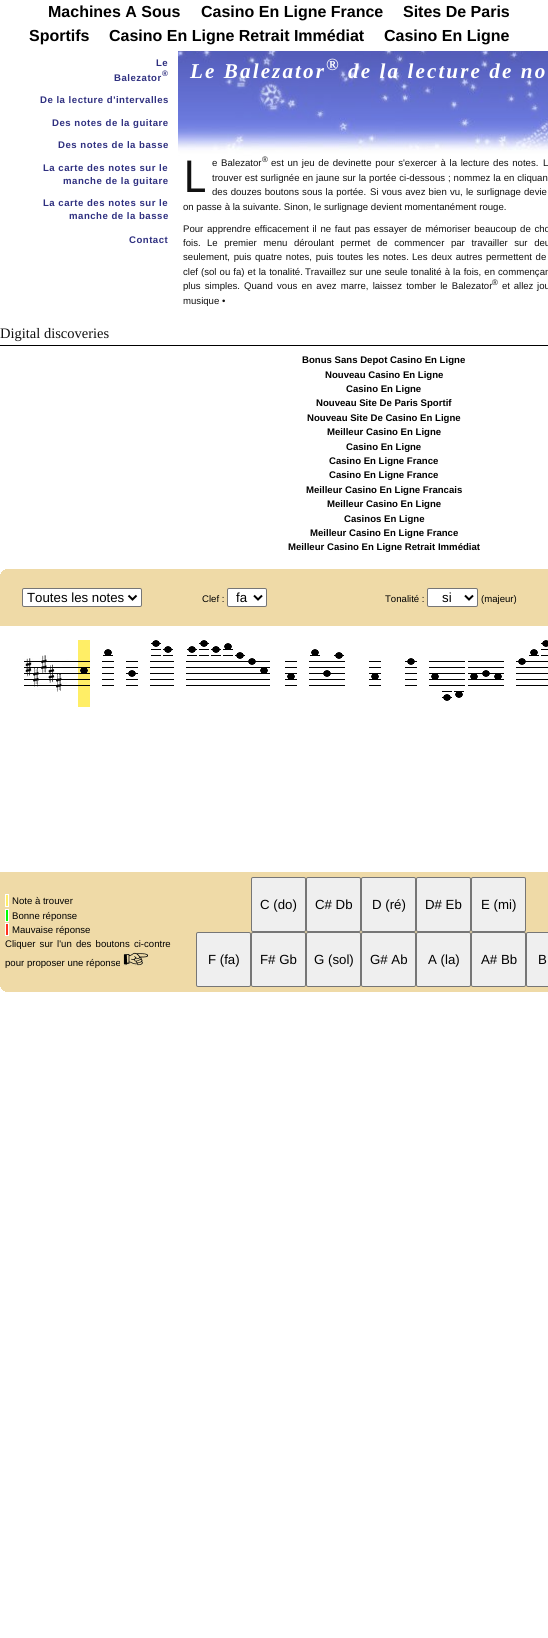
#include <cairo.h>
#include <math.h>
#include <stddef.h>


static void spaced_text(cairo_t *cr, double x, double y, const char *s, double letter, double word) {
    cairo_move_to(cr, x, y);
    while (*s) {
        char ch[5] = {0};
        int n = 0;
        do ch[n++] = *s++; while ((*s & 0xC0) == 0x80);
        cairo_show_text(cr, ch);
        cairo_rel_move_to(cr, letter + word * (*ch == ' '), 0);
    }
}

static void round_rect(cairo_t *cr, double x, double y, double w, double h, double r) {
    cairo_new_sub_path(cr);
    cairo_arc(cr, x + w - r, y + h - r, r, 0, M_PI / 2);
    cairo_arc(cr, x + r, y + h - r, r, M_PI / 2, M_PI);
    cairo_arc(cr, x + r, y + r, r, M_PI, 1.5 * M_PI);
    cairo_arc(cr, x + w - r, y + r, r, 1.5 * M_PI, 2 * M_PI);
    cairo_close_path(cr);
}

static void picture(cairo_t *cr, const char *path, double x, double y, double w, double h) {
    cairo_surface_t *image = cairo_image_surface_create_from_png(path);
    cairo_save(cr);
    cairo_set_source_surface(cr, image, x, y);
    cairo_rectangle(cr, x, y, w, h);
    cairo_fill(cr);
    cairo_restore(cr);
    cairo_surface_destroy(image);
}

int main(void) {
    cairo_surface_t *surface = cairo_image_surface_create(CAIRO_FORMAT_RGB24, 548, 1638);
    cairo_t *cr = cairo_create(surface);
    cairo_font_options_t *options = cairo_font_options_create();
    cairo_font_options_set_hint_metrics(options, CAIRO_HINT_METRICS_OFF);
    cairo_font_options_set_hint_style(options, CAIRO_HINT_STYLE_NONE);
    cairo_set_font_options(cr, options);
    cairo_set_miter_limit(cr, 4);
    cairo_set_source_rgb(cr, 1, 1, 1);
    cairo_paint(cr);
    cairo_select_font_face(cr, "Liberation Sans", CAIRO_FONT_SLANT_NORMAL, CAIRO_FONT_WEIGHT_BOLD);
    cairo_set_font_size(cr, 16);
    cairo_set_source_rgb(cr, 0, 0, 0);
    cairo_move_to(cr, 48, 17);
    cairo_show_text(cr, "Machines A Sous");
    cairo_move_to(cr, 201, 17);
    cairo_show_text(cr, "Casino En Ligne France");
    cairo_move_to(cr, 403, 17);
    cairo_show_text(cr, "Sites De Paris");
    cairo_move_to(cr, 29, 41);
    cairo_show_text(cr, "Sportifs");
    cairo_move_to(cr, 109, 41);
    cairo_show_text(cr, "Casino En Ligne Retrait Immédiat");
    cairo_move_to(cr, 384, 41);
    cairo_show_text(cr, "Casino En Ligne");
    cairo_set_font_size(cr, 9.6);
    cairo_set_source_rgb(cr, 0.184, 0.188, 0.502);
    spaced_text(cr, 156, 66, "Le", 0.5, 0);
    spaced_text(cr, 114, 81, "Balezator", 0.5, 0);
    cairo_set_font_size(cr, 8);
    spaced_text(cr, 162, 76, "®", 0.5, 0);
    cairo_set_font_size(cr, 9.6);
    spaced_text(cr, 40, 103, "De la lecture d'intervalles", 0.5, 0);
    spaced_text(cr, 52, 126, "Des notes de la guitare", 0.5, 0);
    spaced_text(cr, 58, 148, "Des notes de la basse", 0.5, 0);
    spaced_text(cr, 43, 171, "La carte des notes sur le", 0.5, 0);
    spaced_text(cr, 63, 184, "manche de la guitare", 0.5, 0);
    spaced_text(cr, 43, 206, "La carte des notes sur le", 0.5, 0);
    spaced_text(cr, 69, 219, "manche de la basse", 0.5, 0);
    spaced_text(cr, 129, 243, "Contact", 0.5, 0);
    picture(cr, "img1.png", 178, 51, 370, 105);
    cairo_select_font_face(cr, "Liberation Serif", CAIRO_FONT_SLANT_ITALIC, CAIRO_FONT_WEIGHT_BOLD);
    cairo_set_font_size(cr, 21.1);
    cairo_set_source_rgb(cr, 1, 1, 1);
    spaced_text(cr, 190, 78, "Le Balezator", 2.1, 0);
    cairo_set_font_size(cr, 17);
    spaced_text(cr, 326, 70, "®", 2.1, 0);
    cairo_set_font_size(cr, 21.1);
    spaced_text(cr, 348, 78, "de la lecture de no", 2.1, 0);
    cairo_select_font_face(cr, "Noto Sans", CAIRO_FONT_SLANT_NORMAL, CAIRO_FONT_WEIGHT_NORMAL);
    cairo_set_font_size(cr, 44);
    cairo_set_source_rgb(cr, 0.067, 0.067, 0.067);
    cairo_move_to(cr, 183, 192);
    cairo_show_text(cr, "L");
    cairo_select_font_face(cr, "Liberation Sans", CAIRO_FONT_SLANT_NORMAL, CAIRO_FONT_WEIGHT_NORMAL);
    cairo_set_font_size(cr, 9.6);
    spaced_text(cr, 212, 166, "e Balezator", 0, 1);
    cairo_set_font_size(cr, 8);
    cairo_move_to(cr, 262, 162);
    cairo_show_text(cr, "®");
    cairo_set_font_size(cr, 9.6);
    spaced_text(cr, 271, 166, "est un jeu de devinette pour s'exercer à la lecture des notes.", 0, 1);
    spaced_text(cr, 543, 166, "L", 0, 1);
    spaced_text(cr, 212, 181, "trouver est surlignée en jaune sur la portée ci-dessous ; nommez la en cliquan", 0, 0.25);
    spaced_text(cr, 212, 195, "des douzes boutons sous la portée.", 0, 0.5);
    spaced_text(cr, 370, 195, "Si vous avez bien vu, le surlignage devie", 0, 0.5);
    cairo_move_to(cr, 183, 210);
    cairo_show_text(cr, "on passe à la suivante. Sinon, le surlignage devient momentanément rouge.");
    spaced_text(cr, 183, 232, "Pour apprendre efficacement il ne faut pas essayer de mémoriser beaucoup de cho", 0, 1);
    cairo_move_to(cr, 183, 246);
    cairo_show_text(cr, "fois.");
    spaced_text(cr, 207, 246, "Le premier menu déroulant permet de commencer par travailler sur deu", 0, 3.9);
    spaced_text(cr, 183, 260, "seulement, puis quatre notes, puis toutes les notes.", 0, 1);
    spaced_text(cr, 412, 260, "Les deux autres permettent de", 0, 1);
    spaced_text(cr, 183, 275, "clef (sol ou fa) et la tonalité.", 0, 0.4);
    spaced_text(cr, 305, 275, "Travaillez sur une seule tonalité à la fois, en commençan", 0, 0.4);
    spaced_text(cr, 183, 289, "plus simples.", 0, 1.5);
    spaced_text(cr, 244, 289, "Quand vous en avez marre, laissez tomber le Balezator", 0, 1.5);
    cairo_set_font_size(cr, 8);
    cairo_move_to(cr, 492, 285);
    cairo_show_text(cr, "®");
    cairo_set_font_size(cr, 9.6);
    spaced_text(cr, 502, 289, "et allez jou", 0, 1);
    cairo_move_to(cr, 183, 304);
    cairo_show_text(cr, "musique •");
    cairo_set_source_rgb(cr, 0, 0, 0);
    cairo_rectangle(cr, 0, 345, 548, 1);
    cairo_fill(cr);
    cairo_select_font_face(cr, "Liberation Serif", CAIRO_FONT_SLANT_NORMAL, CAIRO_FONT_WEIGHT_NORMAL);
    cairo_set_font_size(cr, 14.5);
    cairo_set_source_rgb(cr, 0.067, 0.067, 0.067);
    cairo_move_to(cr, 0, 338);
    cairo_show_text(cr, "Digital discoveries");
    cairo_select_font_face(cr, "Liberation Sans", CAIRO_FONT_SLANT_NORMAL, CAIRO_FONT_WEIGHT_BOLD);
    cairo_set_font_size(cr, 9.6);
    cairo_set_source_rgb(cr, 0, 0, 0);
    cairo_move_to(cr, 302, 363);
    cairo_show_text(cr, "Bonus Sans Depot Casino En Ligne");
    cairo_move_to(cr, 325, 378);
    cairo_show_text(cr, "Nouveau Casino En Ligne");
    cairo_move_to(cr, 346, 392);
    cairo_show_text(cr, "Casino En Ligne");
    cairo_move_to(cr, 316, 406);
    cairo_show_text(cr, "Nouveau Site De Paris Sportif");
    cairo_move_to(cr, 307, 421);
    cairo_show_text(cr, "Nouveau Site De Casino En Ligne");
    cairo_move_to(cr, 327, 435);
    cairo_show_text(cr, "Meilleur Casino En Ligne");
    cairo_move_to(cr, 346, 450);
    cairo_show_text(cr, "Casino En Ligne");
    cairo_move_to(cr, 329, 464);
    cairo_show_text(cr, "Casino En Ligne France");
    cairo_move_to(cr, 329, 478);
    cairo_show_text(cr, "Casino En Ligne France");
    cairo_move_to(cr, 306, 493);
    cairo_show_text(cr, "Meilleur Casino En Ligne Francais");
    cairo_move_to(cr, 327, 507);
    cairo_show_text(cr, "Meilleur Casino En Ligne");
    cairo_move_to(cr, 344, 522);
    cairo_show_text(cr, "Casinos En Ligne");
    cairo_move_to(cr, 310, 536);
    cairo_show_text(cr, "Meilleur Casino En Ligne France");
    cairo_move_to(cr, 288, 550);
    cairo_show_text(cr, "Meilleur Casino En Ligne Retrait Immédiat");
    cairo_set_source_rgb(cr, 0.937, 0.855, 0.655);
    cairo_rectangle(cr, 0, 569, 548, 57);
    cairo_fill(cr);
    picture(cr, "img2.png", 0, 569, 5, 5);
    cairo_set_source_rgb(cr, 1, 1, 1);
    round_rect(cr, 22.5, 588.5, 119, 18, 1.5);
    cairo_fill_preserve(cr);
    cairo_set_source_rgb(cr, 0.463, 0.463, 0.463);
    cairo_set_line_width(cr, 1);
    cairo_stroke(cr);
    cairo_new_path(cr);
    cairo_move_to(cr, 128.5, 595.5);
    cairo_line_to(cr, 132.5, 599.5);
    cairo_line_to(cr, 136.5, 595.5);
    cairo_set_source_rgb(cr, 0, 0, 0);
    cairo_set_line_width(cr, 2);
    cairo_stroke(cr);
    cairo_select_font_face(cr, "Liberation Sans", CAIRO_FONT_SLANT_NORMAL, CAIRO_FONT_WEIGHT_NORMAL);
    cairo_set_font_size(cr, 13.25);
    cairo_move_to(cr, 27, 602);
    cairo_show_text(cr, "Toutes les notes");
    cairo_set_font_size(cr, 9.6);
    cairo_move_to(cr, 202, 602);
    cairo_show_text(cr, "Clef :");
    cairo_set_source_rgb(cr, 1, 1, 1);
    round_rect(cr, 227.5, 588.5, 39, 18, 1.5);
    cairo_fill_preserve(cr);
    cairo_set_source_rgb(cr, 0.463, 0.463, 0.463);
    cairo_set_line_width(cr, 1);
    cairo_stroke(cr);
    cairo_new_path(cr);
    cairo_move_to(cr, 254, 595.5);
    cairo_line_to(cr, 258, 599.5);
    cairo_line_to(cr, 262, 595.5);
    cairo_set_source_rgb(cr, 0, 0, 0);
    cairo_set_line_width(cr, 2);
    cairo_stroke(cr);
    cairo_set_font_size(cr, 13.25);
    cairo_move_to(cr, 236, 602);
    cairo_show_text(cr, "fa");
    cairo_set_font_size(cr, 9.6);
    cairo_move_to(cr, 385, 602);
    cairo_show_text(cr, "Tonalité :");
    cairo_set_source_rgb(cr, 1, 1, 1);
    round_rect(cr, 427.5, 588.5, 50, 18, 1.5);
    cairo_fill_preserve(cr);
    cairo_set_source_rgb(cr, 0.463, 0.463, 0.463);
    cairo_set_line_width(cr, 1);
    cairo_stroke(cr);
    cairo_new_path(cr);
    cairo_move_to(cr, 465, 595.5);
    cairo_line_to(cr, 469, 599.5);
    cairo_line_to(cr, 473, 595.5);
    cairo_set_source_rgb(cr, 0, 0, 0);
    cairo_set_line_width(cr, 2);
    cairo_stroke(cr);
    cairo_set_font_size(cr, 13.25);
    cairo_move_to(cr, 442, 602);
    cairo_show_text(cr, "si");
    cairo_set_font_size(cr, 9.6);
    cairo_move_to(cr, 481, 602);
    cairo_show_text(cr, "(majeur)");
    picture(cr, "img3.png", 24, 655, 54, 37);
    cairo_set_source_rgb(cr, 1, 0.933, 0.4);
    cairo_rectangle(cr, 78, 640, 12, 67);
    cairo_fill(cr);
    picture(cr, "img4.png", 78, 661, 12, 25);
    picture(cr, "img5.png", 102, 649, 12, 37);
    picture(cr, "img6.png", 126, 661, 12, 25);
    picture(cr, "img7.png", 150, 640, 12, 46);
    picture(cr, "img8.png", 162, 646, 12, 40);
    picture(cr, "img8.png", 186, 646, 12, 40);
    picture(cr, "img7.png", 198, 640, 12, 46);
    picture(cr, "img8.png", 210, 646, 12, 40);
    picture(cr, "img9.png", 222, 643, 12, 43);
    picture(cr, "img10.png", 234, 652, 12, 34);
    picture(cr, "img11.png", 246, 658, 12, 28);
    picture(cr, "img12.png", 258, 661, 12, 25);
    picture(cr, "img13.png", 285, 661, 12, 25);
    picture(cr, "img5.png", 309, 649, 12, 37);
    picture(cr, "img6.png", 321, 661, 12, 25);
    picture(cr, "img10.png", 333, 652, 12, 34);
    picture(cr, "img13.png", 369, 661, 12, 25);
    picture(cr, "img11.png", 405, 658, 12, 28);
    picture(cr, "img13.png", 429, 661, 12, 25);
    picture(cr, "img14.png", 441, 661, 12, 40);
    picture(cr, "img15.png", 453, 661, 12, 37);
    picture(cr, "img13.png", 468, 661, 12, 25);
    picture(cr, "img6.png", 480, 661, 12, 25);
    picture(cr, "img13.png", 492, 661, 12, 25);
    picture(cr, "img11.png", 516, 658, 12, 28);
    picture(cr, "img5.png", 528, 649, 12, 37);
    picture(cr, "img16.png", 540, 640, 8, 46);
    cairo_set_source_rgb(cr, 0.937, 0.855, 0.655);
    cairo_rectangle(cr, 0, 872, 548, 120);
    cairo_fill(cr);
    picture(cr, "img17.png", 0, 987, 5, 5);
    cairo_set_source_rgb(cr, 1, 0.933, 0.4);
    cairo_rectangle(cr, 5.5, 894.5, 3, 12);
    cairo_fill_preserve(cr);
    cairo_set_source_rgb(cr, 1, 1, 1);
    cairo_set_line_width(cr, 1);
    cairo_stroke(cr);
    cairo_set_source_rgb(cr, 0, 0, 0);
    cairo_move_to(cr, 12, 904);
    cairo_show_text(cr, "Note à trouver");
    cairo_set_source_rgb(cr, 0, 1, 0);
    cairo_rectangle(cr, 5.5, 909.5, 3, 12);
    cairo_fill_preserve(cr);
    cairo_set_source_rgb(cr, 1, 1, 1);
    cairo_stroke(cr);
    cairo_set_source_rgb(cr, 0, 0, 0);
    cairo_move_to(cr, 12, 919);
    cairo_show_text(cr, "Bonne réponse");
    cairo_set_source_rgb(cr, 1, 0.2, 0.133);
    cairo_rectangle(cr, 5.5, 923.5, 3, 12);
    cairo_fill_preserve(cr);
    cairo_set_source_rgb(cr, 1, 1, 1);
    cairo_stroke(cr);
    cairo_set_source_rgb(cr, 0, 0, 0);
    cairo_move_to(cr, 12, 933);
    cairo_show_text(cr, "Mauvaise réponse");
    spaced_text(cr, 5, 947, "Cliquer sur l'un des boutons ci-contre", 0, 1.5);
    cairo_move_to(cr, 5, 966);
    cairo_show_text(cr, "pour proposer une réponse");
    picture(cr, "img18.png", 123, 952, 25, 14);
    cairo_set_source_rgb(cr, 0.937, 0.937, 0.937);
    round_rect(cr, 251.5, 877.5, 54, 54, 1.5);
    cairo_fill_preserve(cr);
    cairo_set_source_rgb(cr, 0.463, 0.463, 0.463);
    cairo_stroke(cr);
    cairo_set_font_size(cr, 13.25);
    cairo_set_source_rgb(cr, 0, 0, 0);
    cairo_move_to(cr, 260, 909);
    cairo_show_text(cr, "C (do)");
    cairo_set_source_rgb(cr, 0.937, 0.937, 0.937);
    round_rect(cr, 306.5, 877.5, 54, 54, 1.5);
    cairo_fill_preserve(cr);
    cairo_set_source_rgb(cr, 0.463, 0.463, 0.463);
    cairo_stroke(cr);
    cairo_set_source_rgb(cr, 0, 0, 0);
    cairo_move_to(cr, 315, 909);
    cairo_show_text(cr, "C# Db");
    cairo_set_source_rgb(cr, 0.937, 0.937, 0.937);
    round_rect(cr, 361.5, 877.5, 54, 54, 1.5);
    cairo_fill_preserve(cr);
    cairo_set_source_rgb(cr, 0.463, 0.463, 0.463);
    cairo_stroke(cr);
    cairo_set_source_rgb(cr, 0, 0, 0);
    cairo_move_to(cr, 372, 909);
    cairo_show_text(cr, "D (ré)");
    cairo_set_source_rgb(cr, 0.937, 0.937, 0.937);
    round_rect(cr, 416.5, 877.5, 54, 54, 1.5);
    cairo_fill_preserve(cr);
    cairo_set_source_rgb(cr, 0.463, 0.463, 0.463);
    cairo_stroke(cr);
    cairo_set_source_rgb(cr, 0, 0, 0);
    cairo_move_to(cr, 425, 909);
    cairo_show_text(cr, "D# Eb");
    cairo_set_source_rgb(cr, 0.937, 0.937, 0.937);
    round_rect(cr, 471.5, 877.5, 54, 54, 1.5);
    cairo_fill_preserve(cr);
    cairo_set_source_rgb(cr, 0.463, 0.463, 0.463);
    cairo_stroke(cr);
    cairo_set_source_rgb(cr, 0, 0, 0);
    cairo_move_to(cr, 481, 909);
    cairo_show_text(cr, "E (mi)");
    cairo_set_source_rgb(cr, 0.937, 0.937, 0.937);
    round_rect(cr, 196.5, 932.5, 54, 54, 1.5);
    cairo_fill_preserve(cr);
    cairo_set_source_rgb(cr, 0.463, 0.463, 0.463);
    cairo_stroke(cr);
    cairo_set_source_rgb(cr, 0, 0, 0);
    cairo_move_to(cr, 208, 964);
    cairo_show_text(cr, "F (fa)");
    cairo_set_source_rgb(cr, 0.937, 0.937, 0.937);
    round_rect(cr, 251.5, 932.5, 54, 54, 1.5);
    cairo_fill_preserve(cr);
    cairo_set_source_rgb(cr, 0.463, 0.463, 0.463);
    cairo_stroke(cr);
    cairo_set_source_rgb(cr, 0, 0, 0);
    cairo_move_to(cr, 260, 964);
    cairo_show_text(cr, "F# Gb");
    cairo_set_source_rgb(cr, 0.937, 0.937, 0.937);
    round_rect(cr, 306.5, 932.5, 54, 54, 1.5);
    cairo_fill_preserve(cr);
    cairo_set_source_rgb(cr, 0.463, 0.463, 0.463);
    cairo_stroke(cr);
    cairo_set_source_rgb(cr, 0, 0, 0);
    cairo_move_to(cr, 314, 964);
    cairo_show_text(cr, "G (sol)");
    cairo_set_source_rgb(cr, 0.937, 0.937, 0.937);
    round_rect(cr, 361.5, 932.5, 54, 54, 1.5);
    cairo_fill_preserve(cr);
    cairo_set_source_rgb(cr, 0.463, 0.463, 0.463);
    cairo_stroke(cr);
    cairo_set_source_rgb(cr, 0, 0, 0);
    cairo_move_to(cr, 370, 964);
    cairo_show_text(cr, "G# Ab");
    cairo_set_source_rgb(cr, 0.937, 0.937, 0.937);
    round_rect(cr, 416.5, 932.5, 54, 54, 1.5);
    cairo_fill_preserve(cr);
    cairo_set_source_rgb(cr, 0.463, 0.463, 0.463);
    cairo_stroke(cr);
    cairo_set_source_rgb(cr, 0, 0, 0);
    cairo_move_to(cr, 428, 964);
    cairo_show_text(cr, "A (la)");
    cairo_set_source_rgb(cr, 0.937, 0.937, 0.937);
    round_rect(cr, 471.5, 932.5, 54, 54, 1.5);
    cairo_fill_preserve(cr);
    cairo_set_source_rgb(cr, 0.463, 0.463, 0.463);
    cairo_stroke(cr);
    cairo_set_source_rgb(cr, 0, 0, 0);
    cairo_move_to(cr, 481, 964);
    cairo_show_text(cr, "A# Bb");
    cairo_set_source_rgb(cr, 0.937, 0.937, 0.937);
    round_rect(cr, 526.5, 932.5, 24, 54, 1.5);
    cairo_fill_preserve(cr);
    cairo_set_source_rgb(cr, 0.463, 0.463, 0.463);
    cairo_stroke(cr);
    cairo_set_source_rgb(cr, 0, 0, 0);
    cairo_move_to(cr, 538, 964);
    cairo_show_text(cr, "B");
    cairo_surface_write_to_png(surface, "page.png");
    cairo_font_options_destroy(options);
    cairo_destroy(cr);
    cairo_surface_destroy(surface);
    return 0;
}
